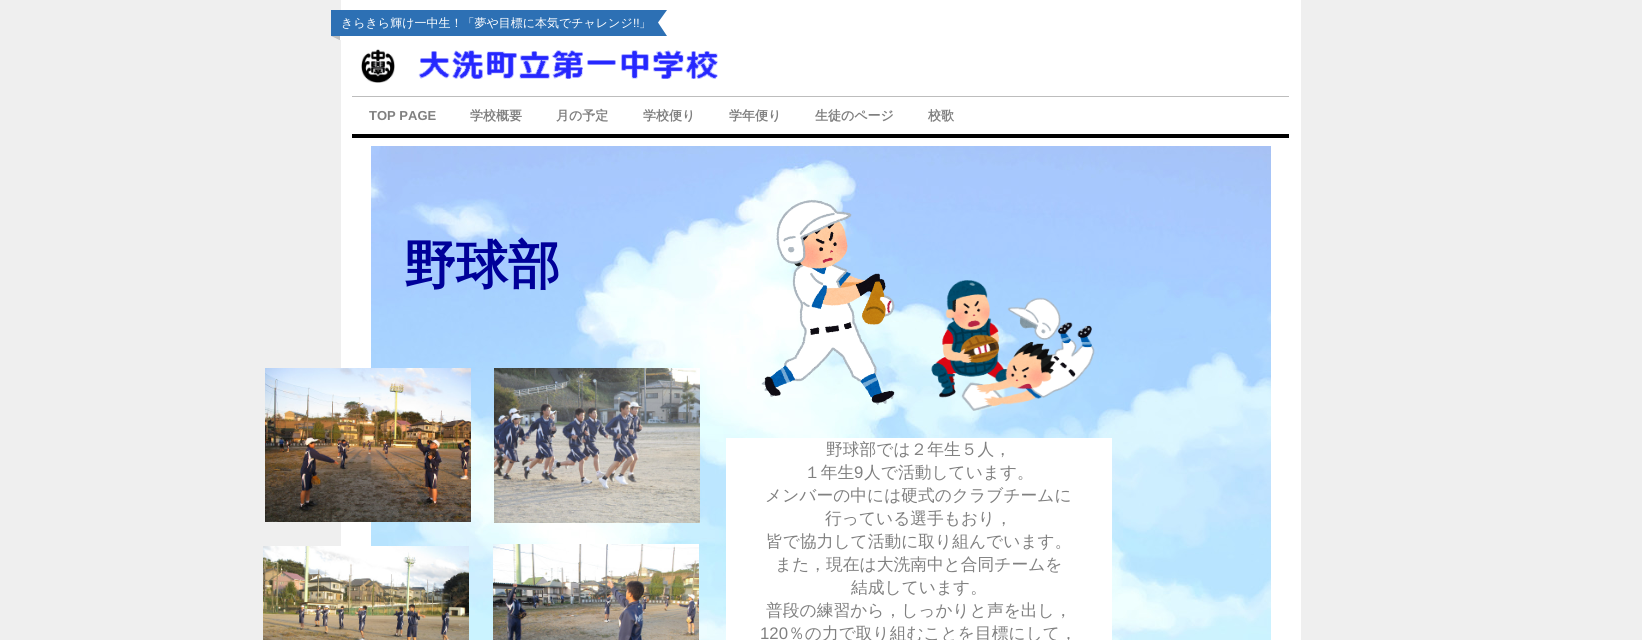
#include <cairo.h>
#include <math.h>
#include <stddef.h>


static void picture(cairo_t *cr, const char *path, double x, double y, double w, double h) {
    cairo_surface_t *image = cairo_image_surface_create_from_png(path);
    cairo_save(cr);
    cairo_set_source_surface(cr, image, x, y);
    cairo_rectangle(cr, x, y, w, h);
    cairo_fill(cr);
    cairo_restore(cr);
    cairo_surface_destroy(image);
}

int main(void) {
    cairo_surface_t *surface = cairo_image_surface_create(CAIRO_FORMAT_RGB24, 1642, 640);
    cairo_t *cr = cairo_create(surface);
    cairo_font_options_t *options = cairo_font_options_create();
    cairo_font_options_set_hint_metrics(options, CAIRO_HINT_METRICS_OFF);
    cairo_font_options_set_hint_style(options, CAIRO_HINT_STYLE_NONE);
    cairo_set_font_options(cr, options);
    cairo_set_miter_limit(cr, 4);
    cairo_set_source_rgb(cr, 0.937, 0.937, 0.937);
    cairo_paint(cr);
    cairo_set_source_rgb(cr, 1, 1, 1);
    cairo_rectangle(cr, 341, 0, 960, 640);
    cairo_fill(cr);
    picture(cr, "img1.png", 331, 10, 100, 30);
    cairo_set_source_rgb(cr, 0.176, 0.439, 0.706);
    cairo_rectangle(cr, 431, 10, 227, 26);
    cairo_fill(cr);
    picture(cr, "img2.png", 658, 10, 13, 26);
    cairo_select_font_face(cr, "WenQuanYi Zen Hei Medium", CAIRO_FONT_SLANT_NORMAL, CAIRO_FONT_WEIGHT_NORMAL);
    cairo_set_font_size(cr, 12);
    cairo_set_source_rgb(cr, 1, 1, 1);
    cairo_move_to(cr, 341, 27);
    cairo_show_text(cr, "きらきら輝け一中生！「夢や目標に本気でチャレンジ");
    cairo_select_font_face(cr, "Liberation Sans", CAIRO_FONT_SLANT_NORMAL, CAIRO_FONT_WEIGHT_NORMAL);
    cairo_move_to(cr, 633, 27);
    cairo_show_text(cr, "!!");
    cairo_select_font_face(cr, "WenQuanYi Zen Hei Medium", CAIRO_FONT_SLANT_NORMAL, CAIRO_FONT_WEIGHT_NORMAL);
    cairo_move_to(cr, 639, 27);
    cairo_show_text(cr, "」");
    picture(cr, "img3.png", 361, 49, 34, 34);
    picture(cr, "img4.png", 418, 50, 300, 29);
    cairo_set_source_rgb(cr, 0.741, 0.741, 0.741);
    cairo_rectangle(cr, 352, 96, 937, 1);
    cairo_fill(cr);
    cairo_set_source_rgb(cr, 0, 0, 0);
    cairo_rectangle(cr, 352, 134, 937, 4);
    cairo_fill(cr);
    cairo_select_font_face(cr, "Liberation Sans", CAIRO_FONT_SLANT_NORMAL, CAIRO_FONT_WEIGHT_BOLD);
    cairo_set_font_size(cr, 13);
    cairo_set_source_rgb(cr, 0.502, 0.502, 0.502);
    cairo_move_to(cr, 369, 120);
    cairo_show_text(cr, "TOP PAGE");
    cairo_select_font_face(cr, "WenQuanYi Zen Hei", CAIRO_FONT_SLANT_NORMAL, CAIRO_FONT_WEIGHT_BOLD);
    cairo_move_to(cr, 470, 120);
    cairo_show_text(cr, "学校概要");
    cairo_move_to(cr, 556, 120);
    cairo_show_text(cr, "月の予定");
    cairo_move_to(cr, 643, 120);
    cairo_show_text(cr, "学校便り");
    cairo_move_to(cr, 729, 120);
    cairo_show_text(cr, "学年便り");
    cairo_move_to(cr, 815, 120);
    cairo_show_text(cr, "生徒のページ");
    cairo_move_to(cr, 928, 120);
    cairo_show_text(cr, "校歌");
    picture(cr, "img5.png", 371, 146, 900, 494);
    cairo_set_font_size(cr, 52);
    cairo_set_source_rgb(cr, 0, 0, 0.6);
    cairo_move_to(cr, 404, 283);
    cairo_show_text(cr, "野球部");
    picture(cr, "img6.png", 761, 199, 134, 206);
    picture(cr, "img7.png", 931, 280, 164, 131);
    picture(cr, "img8.png", 265, 368, 206, 154);
    picture(cr, "img9.png", 494, 368, 206, 155);
    cairo_set_source_rgb(cr, 1, 1, 1);
    cairo_rectangle(cr, 726, 438, 386, 202);
    cairo_fill(cr);
    cairo_select_font_face(cr, "WenQuanYi Zen Hei Medium", CAIRO_FONT_SLANT_NORMAL, CAIRO_FONT_WEIGHT_NORMAL);
    cairo_set_font_size(cr, 16.75);
    cairo_set_source_rgb(cr, 0.502, 0.502, 0.502);
    cairo_move_to(cr, 826, 455);
    cairo_show_text(cr, "野球部では２年生５人，");
    cairo_move_to(cr, 804, 478);
    cairo_show_text(cr, "１年生");
    cairo_select_font_face(cr, "Liberation Sans", CAIRO_FONT_SLANT_NORMAL, CAIRO_FONT_WEIGHT_NORMAL);
    cairo_move_to(cr, 854, 478);
    cairo_show_text(cr, "9");
    cairo_select_font_face(cr, "WenQuanYi Zen Hei Medium", CAIRO_FONT_SLANT_NORMAL, CAIRO_FONT_WEIGHT_NORMAL);
    cairo_move_to(cr, 864, 478);
    cairo_show_text(cr, "人で活動しています。");
    cairo_move_to(cr, 765, 501);
    cairo_show_text(cr, "メンバーの中には硬式のクラブチームに");
    cairo_move_to(cr, 825, 524);
    cairo_show_text(cr, "行っている選手もおり，");
    cairo_move_to(cr, 766, 547);
    cairo_show_text(cr, "皆で協力して活動に取り組んでいます。");
    cairo_move_to(cr, 775, 570);
    cairo_show_text(cr, "また，現在は大洗南中と合同チームを");
    cairo_move_to(cr, 851, 593);
    cairo_show_text(cr, "結成しています。");
    cairo_move_to(cr, 766, 616);
    cairo_show_text(cr, "普段の練習から，しっかりと声を出し，");
    cairo_select_font_face(cr, "Liberation Sans", CAIRO_FONT_SLANT_NORMAL, CAIRO_FONT_WEIGHT_NORMAL);
    cairo_move_to(cr, 760, 639);
    cairo_show_text(cr, "120");
    cairo_select_font_face(cr, "WenQuanYi Zen Hei Medium", CAIRO_FONT_SLANT_NORMAL, CAIRO_FONT_WEIGHT_NORMAL);
    cairo_move_to(cr, 788, 639);
    cairo_show_text(cr, "％の力で取り組むことを目標にして，");
    picture(cr, "img10.png", 263, 546, 206, 94);
    picture(cr, "img11.png", 493, 544, 206, 96);
    cairo_surface_write_to_png(surface, "page.png");
    cairo_font_options_destroy(options);
    cairo_destroy(cr);
    cairo_surface_destroy(surface);
    return 0;
}
